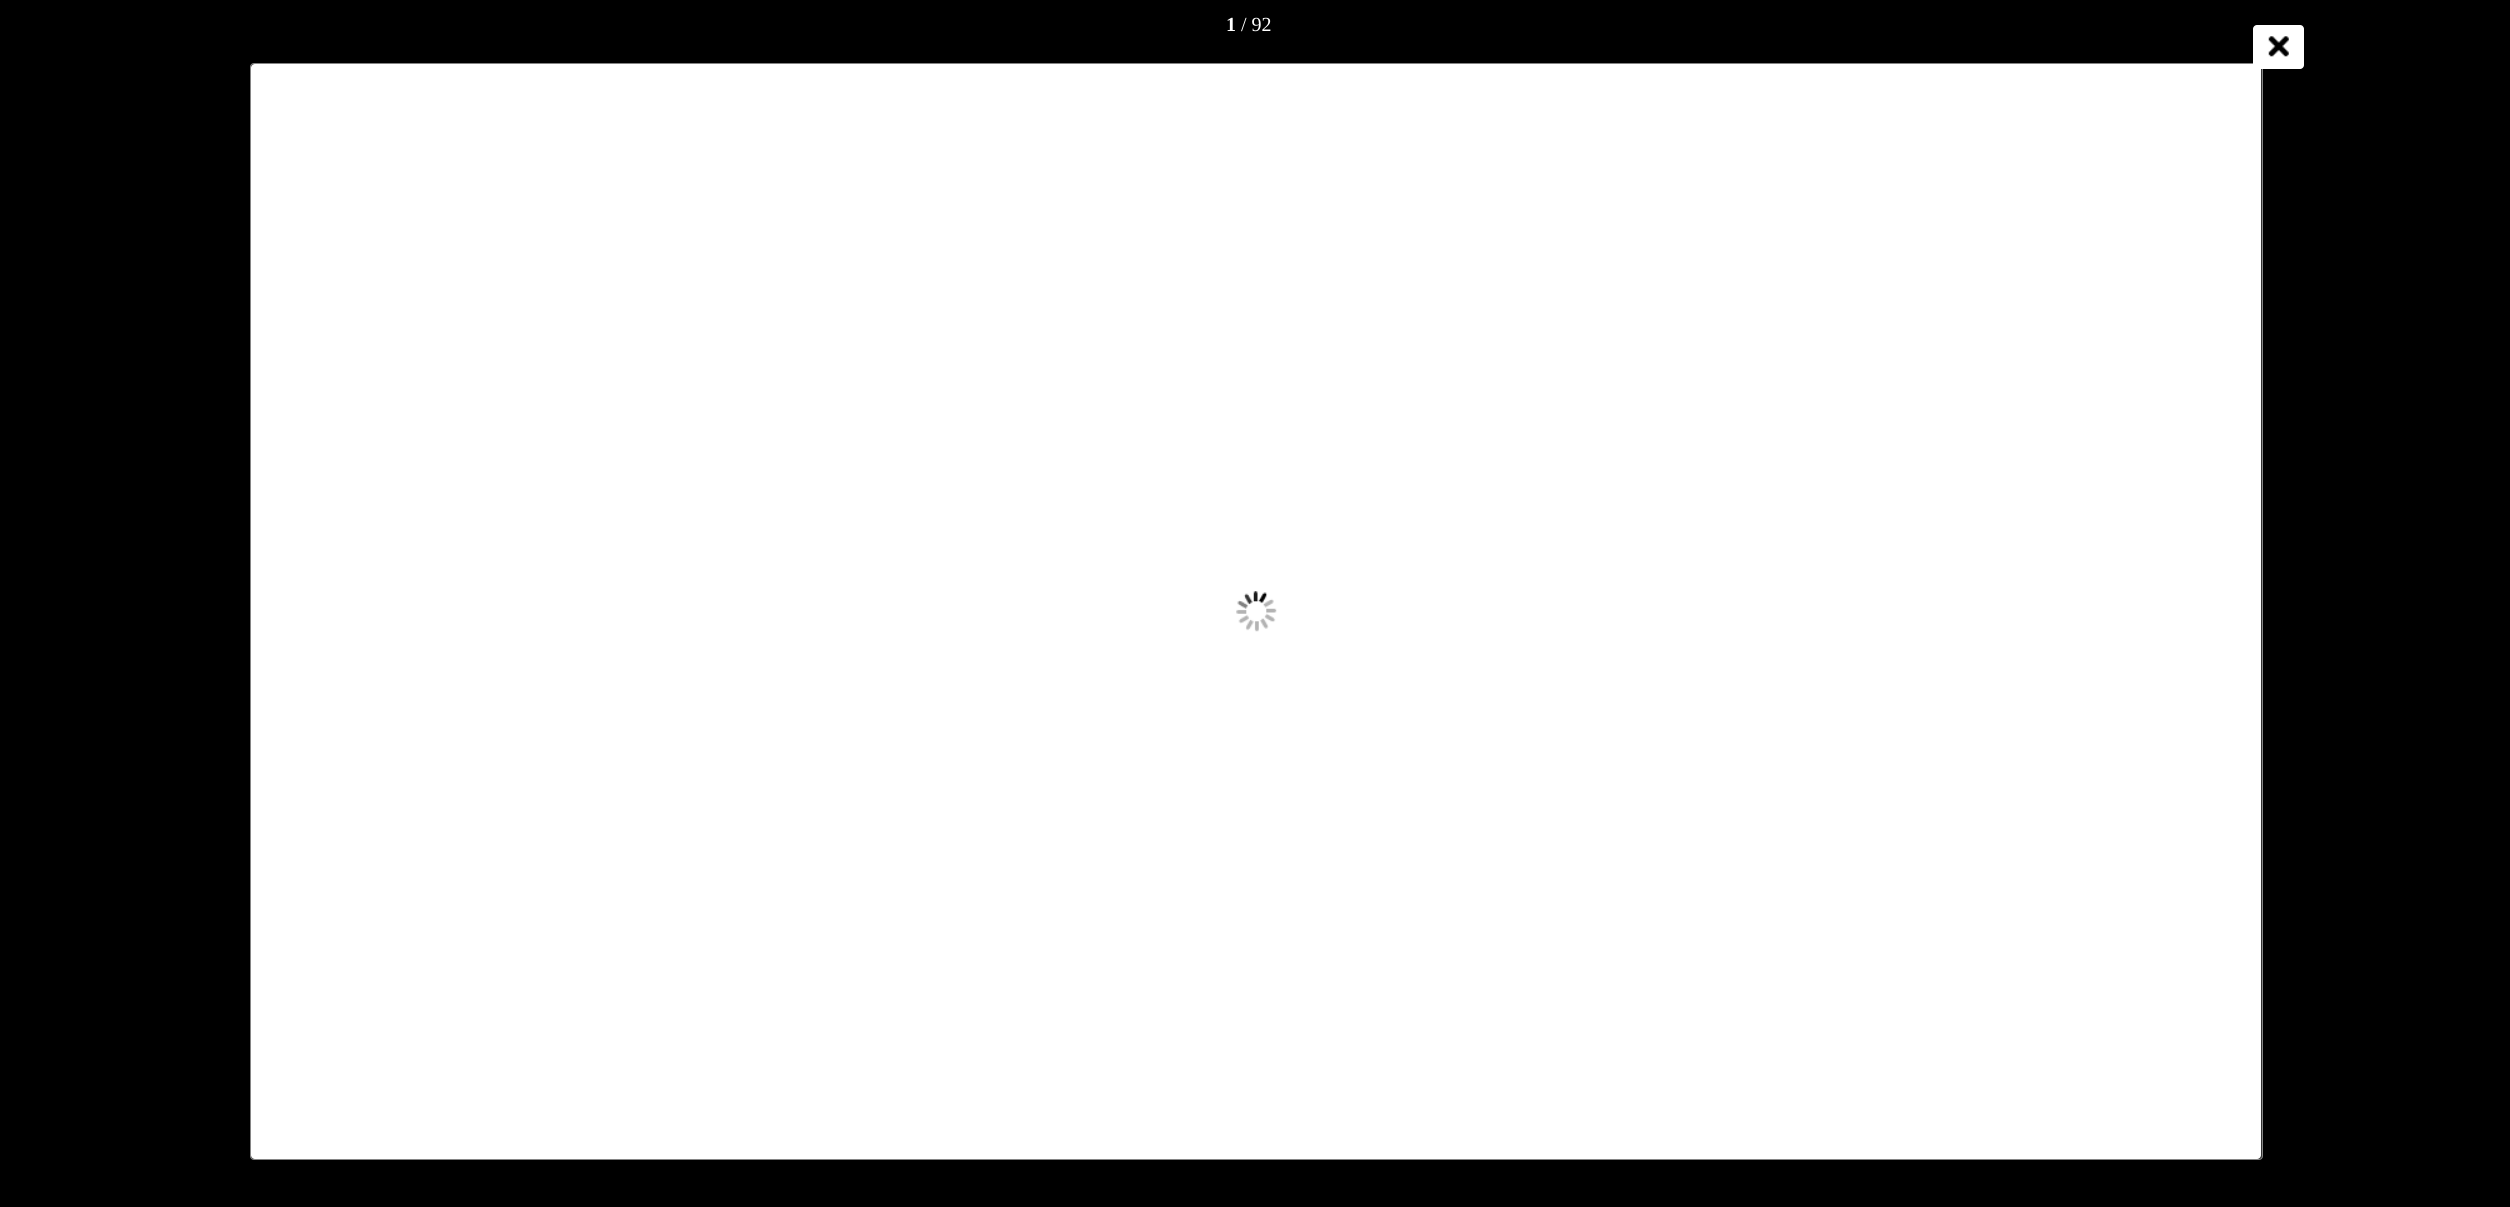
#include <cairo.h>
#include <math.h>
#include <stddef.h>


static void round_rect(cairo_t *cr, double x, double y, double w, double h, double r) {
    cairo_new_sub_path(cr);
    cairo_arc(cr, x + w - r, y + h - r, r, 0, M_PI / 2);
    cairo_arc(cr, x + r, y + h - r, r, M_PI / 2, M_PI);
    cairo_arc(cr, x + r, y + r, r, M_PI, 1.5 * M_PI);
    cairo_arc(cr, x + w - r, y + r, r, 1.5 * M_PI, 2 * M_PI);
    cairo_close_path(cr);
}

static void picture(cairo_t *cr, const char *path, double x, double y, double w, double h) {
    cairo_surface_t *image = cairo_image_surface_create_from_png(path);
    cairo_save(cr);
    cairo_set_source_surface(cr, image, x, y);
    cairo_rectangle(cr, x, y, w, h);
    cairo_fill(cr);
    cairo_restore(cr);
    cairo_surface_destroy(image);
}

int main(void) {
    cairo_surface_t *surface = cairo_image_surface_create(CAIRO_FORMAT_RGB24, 2510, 1207);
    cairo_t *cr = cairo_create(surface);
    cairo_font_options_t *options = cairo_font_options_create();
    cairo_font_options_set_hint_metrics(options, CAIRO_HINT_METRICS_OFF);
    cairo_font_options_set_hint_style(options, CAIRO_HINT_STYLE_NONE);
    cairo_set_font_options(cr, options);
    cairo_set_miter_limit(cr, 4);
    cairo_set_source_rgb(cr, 0, 0, 0);
    cairo_paint(cr);
    cairo_select_font_face(cr, "Liberation Serif", CAIRO_FONT_SLANT_NORMAL, CAIRO_FONT_WEIGHT_BOLD);
    cairo_set_font_size(cr, 20);
    cairo_set_source_rgb(cr, 1, 1, 1);
    cairo_move_to(cr, 1226, 31);
    cairo_show_text(cr, "1");
    cairo_select_font_face(cr, "Liberation Serif", CAIRO_FONT_SLANT_NORMAL, CAIRO_FONT_WEIGHT_NORMAL);
    cairo_move_to(cr, 1241, 31);
    cairo_show_text(cr, "/ 92");
    cairo_set_source_rgb(cr, 0.2, 0.2, 0.2);
    round_rect(cr, 250, 63, 2013, 1097, 4);
    cairo_fill(cr);
    round_rect(cr, 250.5, 63.5, 2012, 1096, 3.5);
    cairo_set_source_rgba(cr, 1, 1, 1, 0.4);
    cairo_set_line_width(cr, 1);
    cairo_stroke(cr);
    cairo_set_source_rgb(cr, 1, 1, 1);
    round_rect(cr, 251, 64, 2010, 1095, 4);
    cairo_fill(cr);
    round_rect(cr, 2253, 25, 51, 44, 4);
    cairo_fill(cr);
    picture(cr, "img1.png", 2268, 36, 21, 21);
    picture(cr, "img2.png", 1236, 591, 41, 41);
    cairo_surface_write_to_png(surface, "page.png");
    cairo_font_options_destroy(options);
    cairo_destroy(cr);
    cairo_surface_destroy(surface);
    return 0;
}
